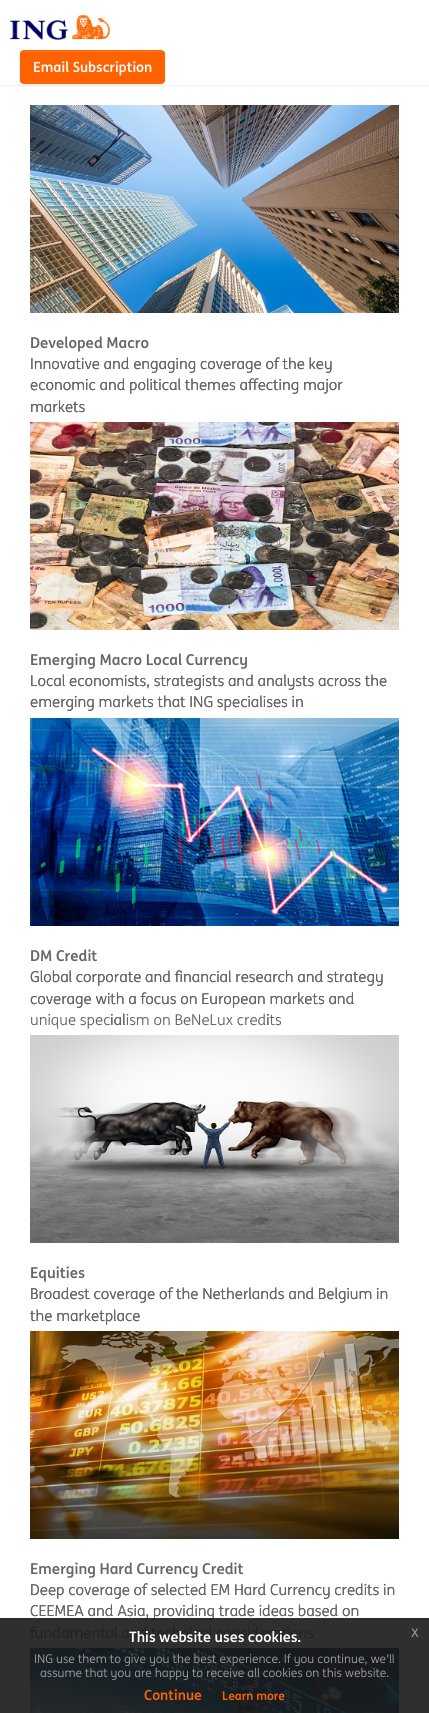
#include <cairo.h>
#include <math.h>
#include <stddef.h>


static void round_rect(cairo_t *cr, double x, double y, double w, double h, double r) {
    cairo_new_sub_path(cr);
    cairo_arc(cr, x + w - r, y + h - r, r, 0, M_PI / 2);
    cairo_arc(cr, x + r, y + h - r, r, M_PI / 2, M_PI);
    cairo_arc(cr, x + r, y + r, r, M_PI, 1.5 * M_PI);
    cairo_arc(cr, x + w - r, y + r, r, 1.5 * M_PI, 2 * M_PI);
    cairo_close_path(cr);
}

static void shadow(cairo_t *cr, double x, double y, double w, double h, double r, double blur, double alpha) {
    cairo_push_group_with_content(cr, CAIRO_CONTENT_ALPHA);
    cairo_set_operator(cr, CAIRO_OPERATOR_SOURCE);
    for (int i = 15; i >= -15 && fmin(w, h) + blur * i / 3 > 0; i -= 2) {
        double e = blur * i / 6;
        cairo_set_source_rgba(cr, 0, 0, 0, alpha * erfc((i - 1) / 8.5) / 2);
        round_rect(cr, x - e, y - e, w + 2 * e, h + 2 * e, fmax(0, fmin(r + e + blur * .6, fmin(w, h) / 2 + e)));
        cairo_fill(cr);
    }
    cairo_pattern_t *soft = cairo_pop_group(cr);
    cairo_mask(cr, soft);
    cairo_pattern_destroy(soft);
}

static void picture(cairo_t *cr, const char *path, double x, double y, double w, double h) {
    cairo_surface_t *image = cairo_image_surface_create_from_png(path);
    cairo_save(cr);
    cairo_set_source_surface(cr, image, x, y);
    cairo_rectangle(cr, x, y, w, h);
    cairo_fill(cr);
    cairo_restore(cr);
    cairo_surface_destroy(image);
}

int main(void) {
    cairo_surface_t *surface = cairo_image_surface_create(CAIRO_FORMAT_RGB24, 429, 1713);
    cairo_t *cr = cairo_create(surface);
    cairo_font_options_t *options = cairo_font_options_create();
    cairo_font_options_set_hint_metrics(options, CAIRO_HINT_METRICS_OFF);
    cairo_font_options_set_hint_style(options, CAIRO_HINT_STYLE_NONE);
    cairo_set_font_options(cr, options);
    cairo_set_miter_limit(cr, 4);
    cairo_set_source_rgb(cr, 1, 1, 1);
    cairo_paint(cr);
    cairo_save(cr);
    cairo_rectangle(cr, 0, 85, 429, 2);
    cairo_clip(cr);
    cairo_set_source_rgb(cr, 0, 0, 0);
    shadow(cr, 0, 1, 429, 85, 0, 2.5, 0.07);
    cairo_restore(cr);
    picture(cr, "img1.png", 10, 15, 100, 25);
    cairo_set_source_rgb(cr, 0, 0, 0);
    shadow(cr, 20, 51, 145, 34, 4, 0.5, 0.07);
    cairo_save(cr);
    round_rect(cr, 20, 50, 145, 34, 4);
    cairo_clip(cr);
    cairo_set_source_rgb(cr, 1, 0.384, 0);
    cairo_rectangle(cr, 20, 51, 145, 32);
    cairo_fill(cr);
    cairo_restore(cr);
    cairo_set_source_rgb(cr, 1, 0.478, 0.149);
    cairo_new_path(cr);
    cairo_move_to(cr, 24, 52);
    cairo_line_to(cr, 161, 52);
    cairo_curve_to(cr, 163, 52, 164, 53, 164, 55);
    cairo_line_to(cr, 164, 54);
    cairo_curve_to(cr, 164, 52, 163, 51, 161, 51);
    cairo_line_to(cr, 24, 51);
    cairo_curve_to(cr, 22, 51, 21, 52, 21, 54);
    cairo_line_to(cr, 21, 55);
    cairo_curve_to(cr, 21, 53, 22, 52, 24, 52);
    cairo_close_path(cr);
    cairo_fill(cr);
    round_rect(cr, 20.5, 50.5, 144, 33, 3.5);
    cairo_set_source_rgb(cr, 1, 0.384, 0);
    cairo_set_line_width(cr, 1);
    cairo_stroke(cr);
    cairo_select_font_face(cr, "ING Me", CAIRO_FONT_SLANT_NORMAL, CAIRO_FONT_WEIGHT_BOLD);
    cairo_set_font_size(cr, 14);
    cairo_set_source_rgb(cr, 1, 1, 1);
    cairo_move_to(cr, 33, 72);
    cairo_show_text(cr, "Email Subscription");
    picture(cr, "img2.png", 30, 105, 369, 208);
    cairo_set_font_size(cr, 15);
    cairo_set_source_rgb(cr, 0.4, 0.4, 0.4);
    cairo_move_to(cr, 30, 348);
    cairo_show_text(cr, "Developed Macro");
    picture(cr, "img3.png", 30, 357, 313, 56);
    cairo_select_font_face(cr, "ING Me", CAIRO_FONT_SLANT_NORMAL, CAIRO_FONT_WEIGHT_NORMAL);
    cairo_move_to(cr, 30, 369);
    cairo_show_text(cr, "Innovative and engaging coverage of the key");
    cairo_move_to(cr, 30, 390);
    cairo_show_text(cr, "economic and political themes affecting major");
    cairo_move_to(cr, 30, 412);
    cairo_show_text(cr, "markets");
    picture(cr, "img4.png", 30, 422, 369, 208);
    cairo_select_font_face(cr, "ING Me", CAIRO_FONT_SLANT_NORMAL, CAIRO_FONT_WEIGHT_BOLD);
    cairo_move_to(cr, 30, 665);
    cairo_show_text(cr, "Emerging Macro Local Currency");
    picture(cr, "img5.png", 30, 674, 357, 37);
    cairo_select_font_face(cr, "ING Me", CAIRO_FONT_SLANT_NORMAL, CAIRO_FONT_WEIGHT_NORMAL);
    cairo_move_to(cr, 30, 686);
    cairo_show_text(cr, "Local economists, strategists and analysts across the");
    cairo_move_to(cr, 30, 707);
    cairo_show_text(cr, "emerging markets that ING specialises in");
    picture(cr, "img6.png", 30, 718, 369, 208);
    cairo_select_font_face(cr, "ING Me", CAIRO_FONT_SLANT_NORMAL, CAIRO_FONT_WEIGHT_BOLD);
    cairo_move_to(cr, 30, 961);
    cairo_show_text(cr, "DM Credit");
    picture(cr, "img7.png", 30, 970, 353, 59);
    cairo_select_font_face(cr, "ING Me", CAIRO_FONT_SLANT_NORMAL, CAIRO_FONT_WEIGHT_NORMAL);
    cairo_move_to(cr, 30, 982);
    cairo_show_text(cr, "Global corporate and financial research and strategy");
    cairo_move_to(cr, 30, 1004);
    cairo_show_text(cr, "coverage with a focus on European markets and");
    cairo_move_to(cr, 110, 1025);
    cairo_show_text(cr, "ial");
    cairo_move_to(cr, 266, 1025);
    cairo_show_text(cr, "i");
    picture(cr, "img8.png", 30, 1035, 369, 208);
    cairo_select_font_face(cr, "ING Me", CAIRO_FONT_SLANT_NORMAL, CAIRO_FONT_WEIGHT_BOLD);
    cairo_move_to(cr, 30, 1278);
    cairo_show_text(cr, "Equities");
    picture(cr, "img9.png", 30, 1287, 358, 38);
    cairo_select_font_face(cr, "ING Me", CAIRO_FONT_SLANT_NORMAL, CAIRO_FONT_WEIGHT_NORMAL);
    cairo_move_to(cr, 30, 1299);
    cairo_show_text(cr, "Broadest coverage of the Netherlands and Belgium in");
    cairo_move_to(cr, 30, 1321);
    cairo_show_text(cr, "the marketplace");
    picture(cr, "img10.png", 30, 1331, 369, 208);
    cairo_select_font_face(cr, "ING Me", CAIRO_FONT_SLANT_NORMAL, CAIRO_FONT_WEIGHT_BOLD);
    cairo_move_to(cr, 30, 1574);
    cairo_show_text(cr, "Emerging Hard Currency Credit");
    picture(cr, "img11.png", 30, 1583, 365, 56);
    cairo_select_font_face(cr, "ING Me", CAIRO_FONT_SLANT_NORMAL, CAIRO_FONT_WEIGHT_NORMAL);
    cairo_move_to(cr, 30, 1595);
    cairo_show_text(cr, "Deep coverage of selected EM Hard Currency credits in");
    cairo_move_to(cr, 30, 1616);
    cairo_show_text(cr, "CEEMEA and Asia, providing trade ideas based on");
    picture(cr, "img12.png", 30, 1648, 369, 65);
    cairo_set_source_rgba(cr, 0.098, 0.098, 0.098, 0.9);
    cairo_rectangle(cr, 0, 1618, 429, 95);
    cairo_fill(cr);
    cairo_select_font_face(cr, "ING Me", CAIRO_FONT_SLANT_NORMAL, CAIRO_FONT_WEIGHT_BOLD);
    cairo_set_font_size(cr, 14.4);
    cairo_set_source_rgb(cr, 1, 1, 1);
    cairo_move_to(cr, 129, 1642);
    cairo_show_text(cr, "This website uses cookies.");
    cairo_select_font_face(cr, "ING Me", CAIRO_FONT_SLANT_NORMAL, CAIRO_FONT_WEIGHT_NORMAL);
    cairo_set_font_size(cr, 16);
    cairo_set_source_rgb(cr, 0.635, 0.635, 0.635);
    cairo_move_to(cr, 411, 1637);
    cairo_show_text(cr, "x");
    cairo_set_font_size(cr, 12);
    cairo_move_to(cr, 34, 1663);
    cairo_show_text(cr, "ING use them to give you the best experience. If you continue, we'll");
    cairo_move_to(cr, 40, 1677);
    cairo_show_text(cr, "assume that you are happy to receive all cookies on this website.");
    cairo_select_font_face(cr, "ING Me", CAIRO_FONT_SLANT_NORMAL, CAIRO_FONT_WEIGHT_BOLD);
    cairo_set_font_size(cr, 14);
    cairo_set_source_rgb(cr, 1, 0.384, 0);
    cairo_move_to(cr, 144, 1700);
    cairo_show_text(cr, "Continue");
    cairo_set_font_size(cr, 12);
    cairo_move_to(cr, 222, 1700);
    cairo_show_text(cr, "Learn more");
    cairo_surface_write_to_png(surface, "page.png");
    cairo_font_options_destroy(options);
    cairo_destroy(cr);
    cairo_surface_destroy(surface);
    return 0;
}
